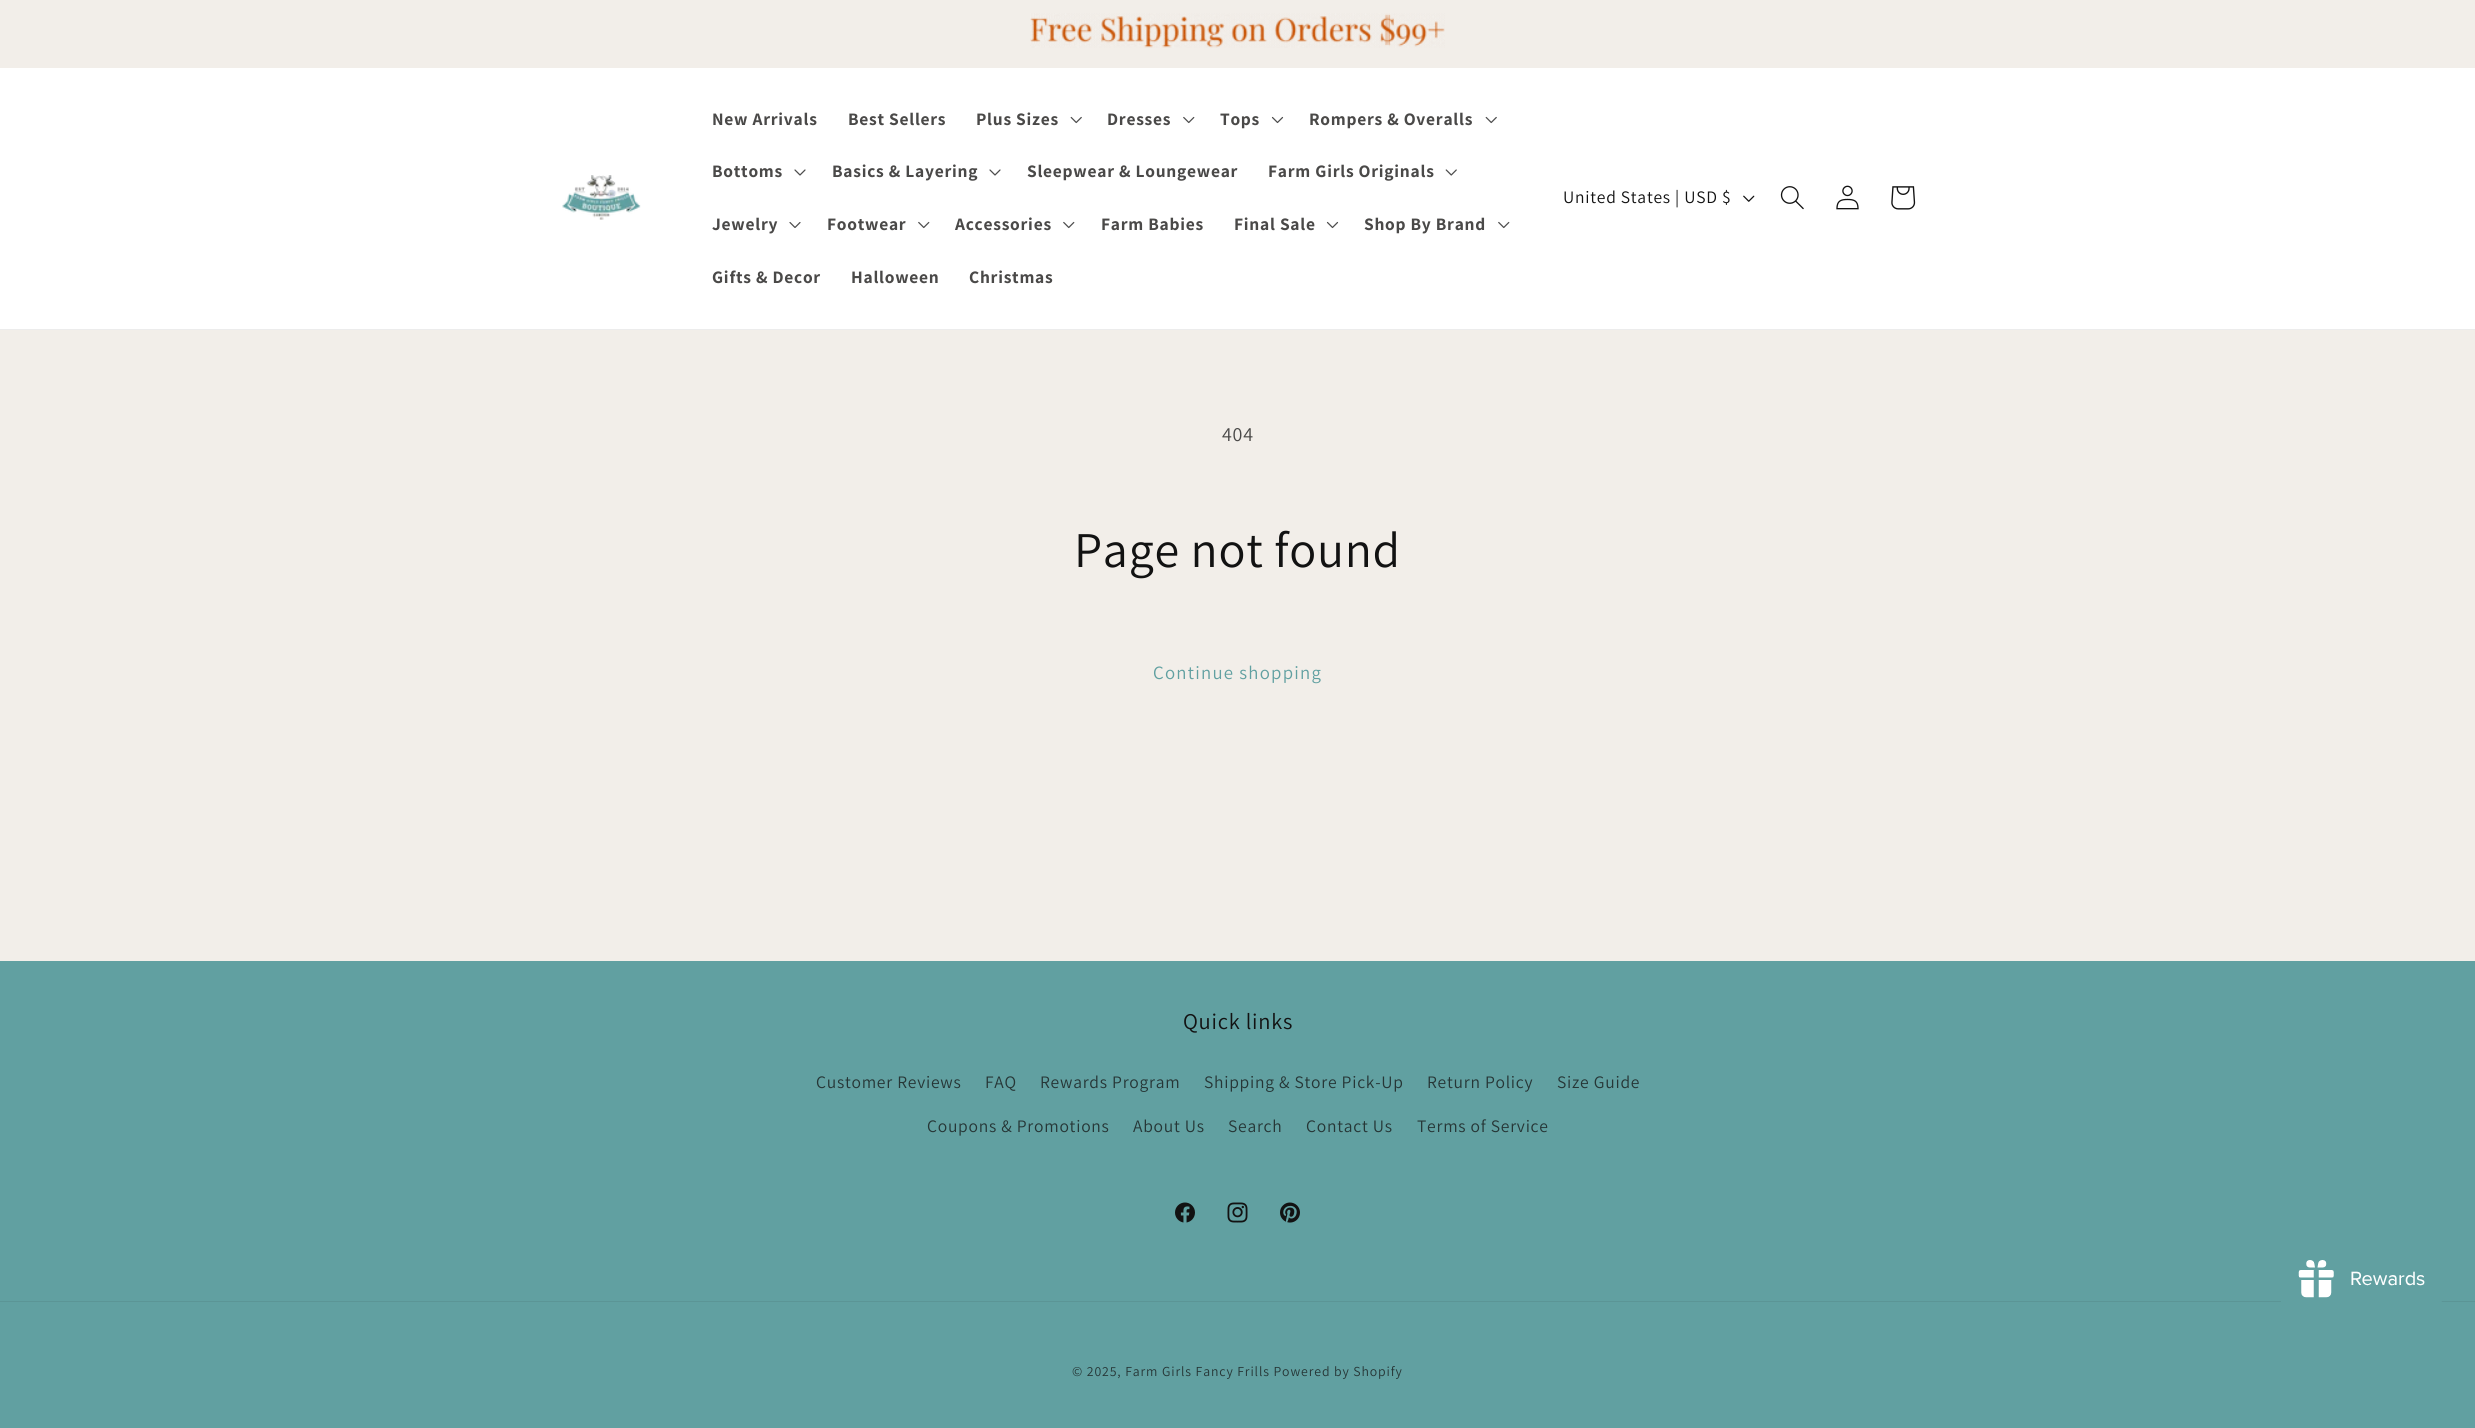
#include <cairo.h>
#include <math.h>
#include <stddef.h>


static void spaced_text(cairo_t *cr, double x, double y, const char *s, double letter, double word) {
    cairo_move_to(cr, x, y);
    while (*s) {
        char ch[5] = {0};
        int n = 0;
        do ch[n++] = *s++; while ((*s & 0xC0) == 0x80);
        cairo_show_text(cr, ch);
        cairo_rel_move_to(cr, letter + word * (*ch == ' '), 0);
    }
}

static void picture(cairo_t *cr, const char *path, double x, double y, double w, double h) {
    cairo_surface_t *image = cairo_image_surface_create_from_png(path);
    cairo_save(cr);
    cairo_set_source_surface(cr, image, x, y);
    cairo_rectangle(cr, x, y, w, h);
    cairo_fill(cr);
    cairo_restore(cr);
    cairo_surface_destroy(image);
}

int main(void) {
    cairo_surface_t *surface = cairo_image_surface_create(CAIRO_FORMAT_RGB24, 2475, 1428);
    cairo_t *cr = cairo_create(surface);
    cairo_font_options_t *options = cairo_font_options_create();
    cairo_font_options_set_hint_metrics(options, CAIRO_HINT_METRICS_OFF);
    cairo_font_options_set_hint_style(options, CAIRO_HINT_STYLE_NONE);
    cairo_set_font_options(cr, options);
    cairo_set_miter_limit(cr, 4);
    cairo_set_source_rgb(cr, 0.949, 0.933, 0.914);
    cairo_paint(cr);
    picture(cr, "img1.png", 1030, 13, 415, 35);
    cairo_set_source_rgb(cr, 1, 1, 1);
    cairo_rectangle(cr, 0, 68, 2475, 261);
    cairo_fill(cr);
    cairo_set_source_rgb(cr, 0.925, 0.925, 0.925);
    cairo_rectangle(cr, 0, 329, 2475, 1);
    cairo_fill(cr);
    picture(cr, "img2.png", 562, 175, 79, 45);
    cairo_select_font_face(cr, "Assistant", CAIRO_FONT_SLANT_NORMAL, CAIRO_FONT_WEIGHT_BOLD);
    cairo_set_font_size(cr, 17.5);
    cairo_set_source_rgb(cr, 0.29, 0.286, 0.282);
    spaced_text(cr, 712, 125, "New Arrivals", 0.75, 0);
    spaced_text(cr, 848, 125, "Best Sellers", 0.75, 0);
    spaced_text(cr, 976, 125, "Plus Sizes", 0.75, 0);
    picture(cr, "img3.png", 1070, 116, 12, 8);
    spaced_text(cr, 1107, 125, "Dresses", 0.75, 0);
    picture(cr, "img4.png", 1183, 116, 12, 8);
    spaced_text(cr, 1220, 125, "Tops", 0.75, 0);
    picture(cr, "img5.png", 1271, 116, 13, 8);
    spaced_text(cr, 1309, 125, "Rompers & Overalls", 0.75, 0);
    picture(cr, "img3.png", 1485, 116, 12, 8);
    spaced_text(cr, 712, 177, "Bottoms", 0.75, 0);
    picture(cr, "img6.png", 794, 169, 12, 7);
    spaced_text(cr, 832, 177, "Basics & Layering", 0.75, 0);
    picture(cr, "img6.png", 989, 169, 12, 7);
    spaced_text(cr, 1027, 177, "Sleepwear & Loungewear", 0.75, 0);
    spaced_text(cr, 1268, 177, "Farm Girls Originals", 0.75, 0);
    picture(cr, "img7.png", 1445, 169, 12, 7);
    spaced_text(cr, 712, 230, "Jewelry", 0.75, 0);
    picture(cr, "img8.png", 789, 222, 12, 6);
    spaced_text(cr, 827, 230, "Footwear", 0.75, 0);
    picture(cr, "img4.png", 918, 221, 12, 8);
    spaced_text(cr, 955, 230, "Accessories", 0.75, 0);
    picture(cr, "img4.png", 1063, 221, 12, 8);
    spaced_text(cr, 1101, 230, "Farm Babies", 0.75, 0);
    spaced_text(cr, 1234, 230, "Final Sale", 0.75, 0);
    picture(cr, "img5.png", 1326, 221, 13, 8);
    spaced_text(cr, 1364, 230, "Shop By Brand", 0.75, 0);
    picture(cr, "img4.png", 1498, 221, 12, 8);
    spaced_text(cr, 712, 283, "Gifts & Decor", 0.75, 0);
    spaced_text(cr, 851, 283, "Halloween", 0.75, 0);
    spaced_text(cr, 969, 283, "Christmas", 0.75, 0);
    cairo_select_font_face(cr, "Assistant", CAIRO_FONT_SLANT_NORMAL, CAIRO_FONT_WEIGHT_NORMAL);
    cairo_set_source_rgb(cr, 0.071, 0.071, 0.071);
    spaced_text(cr, 1563, 203, "United States | USD $", 0.75, 0);
    picture(cr, "img9.png", 1743, 195, 12, 7);
    picture(cr, "img10.png", 1780, 186, 24, 24);
    picture(cr, "img11.png", 1836, 185, 23, 25);
    picture(cr, "img12.png", 1891, 186, 25, 24);
    cairo_set_font_size(cr, 20);
    cairo_set_source_rgb(cr, 0.29, 0.286, 0.282);
    spaced_text(cr, 1222, 441, "404", 0.75, 0);
    cairo_set_font_size(cr, 50);
    cairo_set_source_rgb(cr, 0.071, 0.071, 0.071);
    spaced_text(cr, 1074, 567, "Page not found", 0.75, 0);
    cairo_set_font_size(cr, 18.75);
    cairo_set_source_rgb(cr, 0.38, 0.627, 0.631);
    spaced_text(cr, 1153, 679, "Continue shopping", 1.25, 0);
    cairo_rectangle(cr, 0, 961, 2475, 467);
    cairo_fill(cr);
    cairo_set_font_size(cr, 22.5);
    cairo_set_source_rgb(cr, 0.071, 0.071, 0.071);
    spaced_text(cr, 1183, 1029, "Quick links", 0.75, 0);
    cairo_set_font_size(cr, 17.5);
    cairo_set_source_rgb(cr, 0.149, 0.212, 0.212);
    spaced_text(cr, 816, 1088, "Customer Reviews", 0.75, 0);
    spaced_text(cr, 985, 1088, "FAQ", 0.75, 0);
    spaced_text(cr, 1040, 1088, "Rewards Program", 0.75, 0);
    spaced_text(cr, 1204, 1088, "Shipping & Store Pick-Up", 0.75, 0);
    spaced_text(cr, 1427, 1088, "Return Policy", 0.75, 0);
    spaced_text(cr, 1557, 1088, "Size Guide", 0.75, 0);
    spaced_text(cr, 927, 1132, "Coupons & Promotions", 0.75, 0);
    spaced_text(cr, 1133, 1132, "About Us", 0.75, 0);
    spaced_text(cr, 1228, 1132, "Search", 0.75, 0);
    spaced_text(cr, 1306, 1132, "Contact Us", 0.75, 0);
    spaced_text(cr, 1417, 1132, "Terms of Service", 0.75, 0);
    picture(cr, "img13.png", 1175, 1202, 20, 21);
    picture(cr, "img14.png", 1227, 1202, 21, 21);
    picture(cr, "img15.png", 1280, 1202, 20, 21);
    cairo_set_source_rgb(cr, 0.357, 0.584, 0.588);
    cairo_rectangle(cr, 0, 1301, 2475, 1);
    cairo_fill(cr);
    cairo_set_font_size(cr, 13.75);
    cairo_set_source_rgb(cr, 0.149, 0.212, 0.212);
    spaced_text(cr, 1072, 1376, "© 2025, Farm Girls Fancy Frills Powered by Shopify", 0.88, 0);
    picture(cr, "img16.png", 2281, 1260, 161, 42);
    cairo_surface_write_to_png(surface, "page.png");
    cairo_font_options_destroy(options);
    cairo_destroy(cr);
    cairo_surface_destroy(surface);
    return 0;
}
